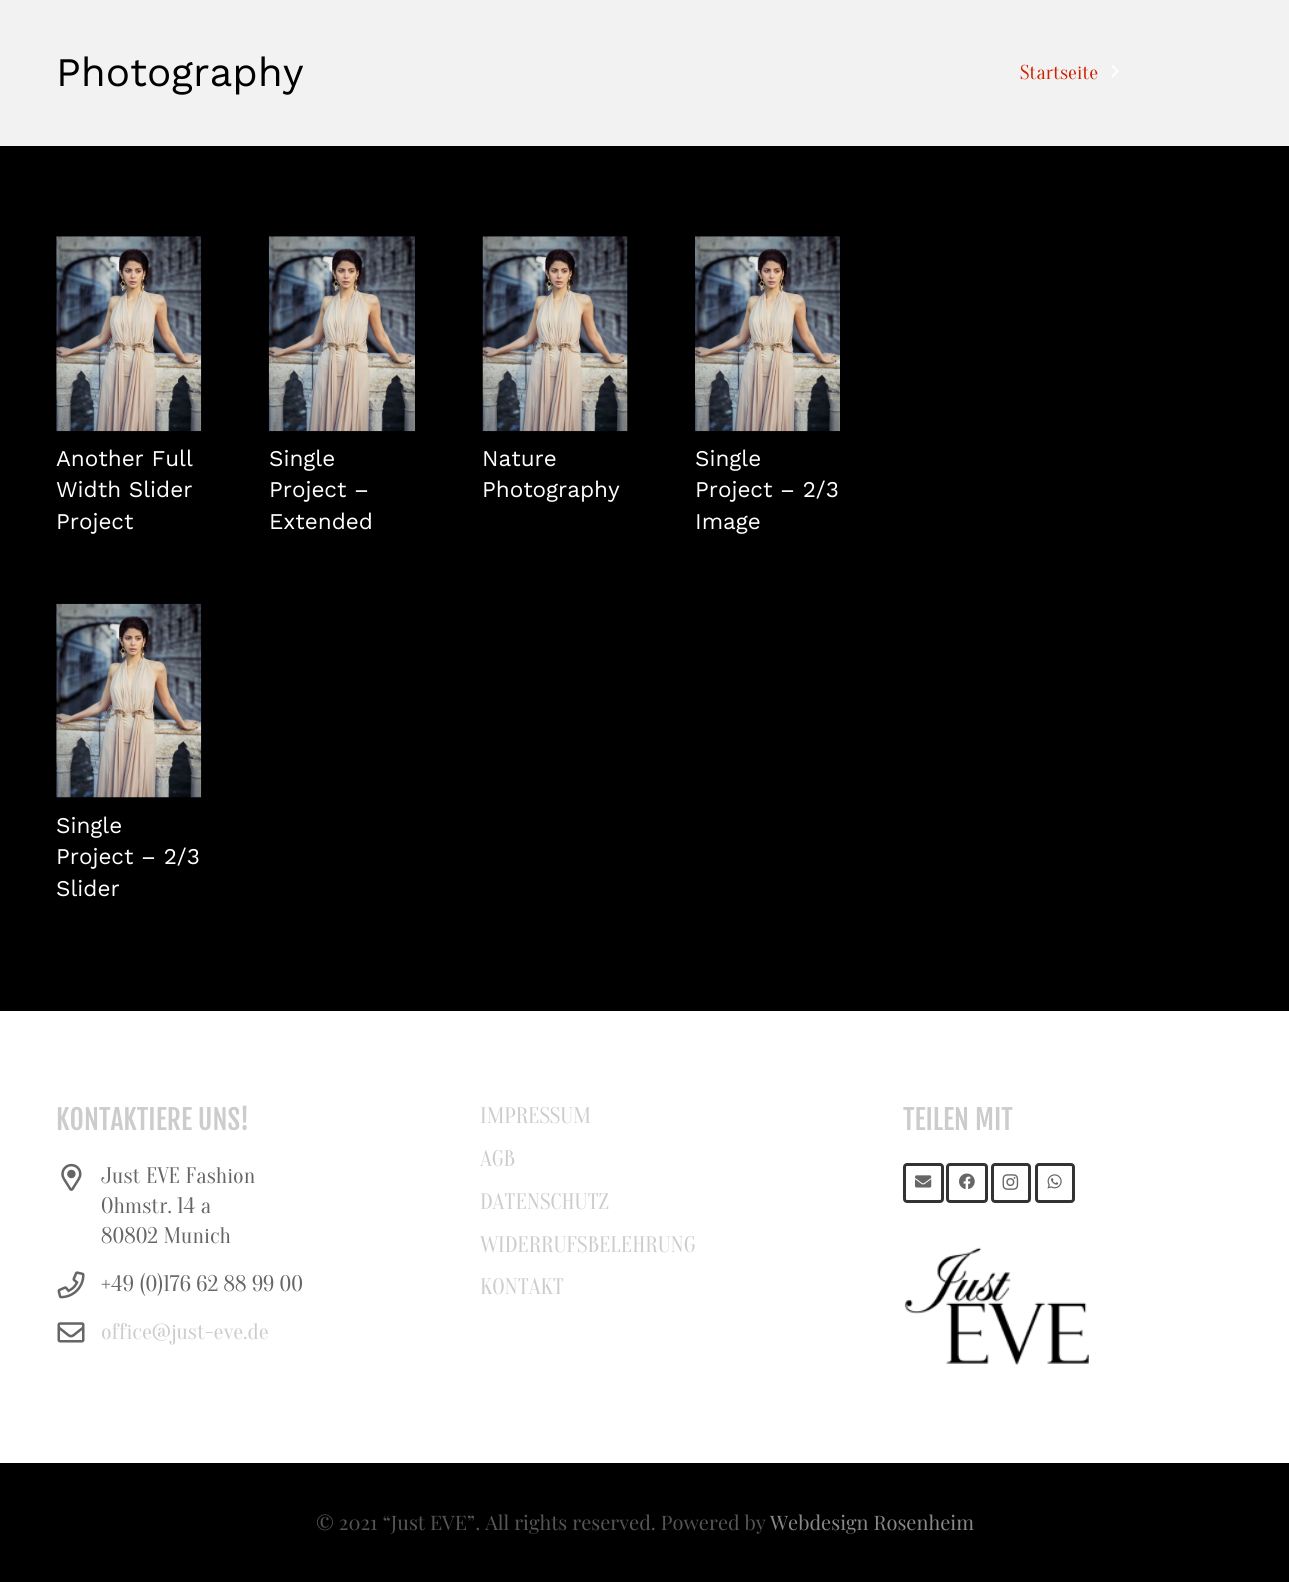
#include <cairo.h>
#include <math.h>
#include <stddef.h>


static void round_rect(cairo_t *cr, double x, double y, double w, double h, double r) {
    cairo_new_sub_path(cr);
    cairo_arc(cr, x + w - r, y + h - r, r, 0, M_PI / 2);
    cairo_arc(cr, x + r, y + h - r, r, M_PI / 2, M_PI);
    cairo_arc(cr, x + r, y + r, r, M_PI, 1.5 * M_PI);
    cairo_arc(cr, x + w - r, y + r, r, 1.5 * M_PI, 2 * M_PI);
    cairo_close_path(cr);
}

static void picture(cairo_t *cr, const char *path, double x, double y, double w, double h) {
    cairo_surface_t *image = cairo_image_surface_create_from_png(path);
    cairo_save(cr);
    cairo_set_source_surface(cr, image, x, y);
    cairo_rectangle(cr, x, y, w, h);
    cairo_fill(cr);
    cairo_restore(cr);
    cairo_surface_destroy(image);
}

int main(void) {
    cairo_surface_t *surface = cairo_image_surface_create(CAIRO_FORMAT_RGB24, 1289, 1582);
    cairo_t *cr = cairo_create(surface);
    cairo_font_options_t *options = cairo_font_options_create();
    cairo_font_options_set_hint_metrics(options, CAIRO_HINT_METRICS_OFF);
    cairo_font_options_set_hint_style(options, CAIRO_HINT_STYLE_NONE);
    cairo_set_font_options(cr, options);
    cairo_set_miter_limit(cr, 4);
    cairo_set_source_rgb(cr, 0, 0, 0);
    cairo_paint(cr);
    cairo_set_source_rgb(cr, 0.949, 0.949, 0.949);
    cairo_rectangle(cr, 0, 0, 1289, 146);
    cairo_fill(cr);
    cairo_select_font_face(cr, "Work Sans", CAIRO_FONT_SLANT_NORMAL, CAIRO_FONT_WEIGHT_NORMAL);
    cairo_set_font_size(cr, 40.5);
    cairo_set_source_rgb(cr, 0, 0, 0);
    cairo_move_to(cr, 56, 86);
    cairo_show_text(cr, "Photography");
    cairo_select_font_face(cr, "Oranienbaum", CAIRO_FONT_SLANT_NORMAL, CAIRO_FONT_WEIGHT_NORMAL);
    cairo_set_font_size(cr, 20);
    cairo_set_source_rgb(cr, 0.8, 0.133, 0);
    cairo_move_to(cr, 1020, 79);
    cairo_show_text(cr, "Startseite");
    picture(cr, "img1.png", 1111, 65, 8, 13);
    picture(cr, "img2.png", 56, 236, 146, 196);
    cairo_select_font_face(cr, "Work Sans", CAIRO_FONT_SLANT_NORMAL, CAIRO_FONT_WEIGHT_NORMAL);
    cairo_set_font_size(cr, 22.5);
    cairo_set_source_rgb(cr, 1, 1, 1);
    cairo_move_to(cr, 56, 466);
    cairo_show_text(cr, "Another Full");
    cairo_move_to(cr, 56, 497);
    cairo_show_text(cr, "Width Slider");
    cairo_move_to(cr, 56, 529);
    cairo_show_text(cr, "Project");
    picture(cr, "img3.png", 268, 236, 147, 196);
    cairo_move_to(cr, 269, 466);
    cairo_show_text(cr, "Single");
    cairo_move_to(cr, 269, 497);
    cairo_show_text(cr, "Project –");
    cairo_move_to(cr, 269, 529);
    cairo_show_text(cr, "Extended");
    picture(cr, "img4.png", 482, 236, 146, 196);
    cairo_move_to(cr, 482, 466);
    cairo_show_text(cr, "Nature");
    cairo_move_to(cr, 482, 497);
    cairo_show_text(cr, "Photography");
    picture(cr, "img5.png", 695, 236, 145, 196);
    cairo_move_to(cr, 695, 466);
    cairo_show_text(cr, "Single");
    cairo_move_to(cr, 695, 497);
    cairo_show_text(cr, "Project – 2/3");
    cairo_move_to(cr, 695, 529);
    cairo_show_text(cr, "Image");
    picture(cr, "img6.png", 56, 603, 146, 195);
    cairo_move_to(cr, 56, 833);
    cairo_show_text(cr, "Single");
    cairo_move_to(cr, 56, 864);
    cairo_show_text(cr, "Project – 2/3");
    cairo_move_to(cr, 56, 896);
    cairo_show_text(cr, "Slider");
    cairo_rectangle(cr, 0, 1011, 1289, 452);
    cairo_fill(cr);
    cairo_select_font_face(cr, "Fjalla One", CAIRO_FONT_SLANT_NORMAL, CAIRO_FONT_WEIGHT_NORMAL);
    cairo_set_font_size(cr, 27.5);
    cairo_set_source_rgb(cr, 0.8, 0.8, 0.8);
    cairo_move_to(cr, 56, 1130);
    cairo_show_text(cr, "KONTAKTIERE UNS!");
    picture(cr, "img7.png", 61, 1163, 21, 28);
    cairo_select_font_face(cr, "Oranienbaum", CAIRO_FONT_SLANT_NORMAL, CAIRO_FONT_WEIGHT_NORMAL);
    cairo_set_font_size(cr, 22.5);
    cairo_set_source_rgb(cr, 0.4, 0.4, 0.4);
    cairo_move_to(cr, 101, 1183);
    cairo_show_text(cr, "Just EVE Fashion");
    cairo_move_to(cr, 101, 1213);
    cairo_show_text(cr, "Ohmstr. 14 a");
    cairo_move_to(cr, 101, 1243);
    cairo_show_text(cr, "80802 Munich");
    picture(cr, "img8.png", 57, 1271, 28, 28);
    cairo_move_to(cr, 101, 1291);
    cairo_show_text(cr, "+49 (0)176 62 88 99 00");
    picture(cr, "img9.png", 57, 1322, 28, 21);
    cairo_set_source_rgb(cr, 0.8, 0.8, 0.8);
    cairo_move_to(cr, 101, 1339);
    cairo_show_text(cr, "office@just-eve.de");
    cairo_move_to(cr, 480, 1123);
    cairo_show_text(cr, "IMPRESSUM");
    cairo_move_to(cr, 480, 1166);
    cairo_show_text(cr, "AGB");
    cairo_move_to(cr, 480, 1209);
    cairo_show_text(cr, "DATENSCHUTZ");
    cairo_move_to(cr, 480, 1252);
    cairo_show_text(cr, "WIDERRUFSBELEHRUNG");
    cairo_move_to(cr, 480, 1294);
    cairo_show_text(cr, "KONTAKT");
    cairo_select_font_face(cr, "Fjalla One", CAIRO_FONT_SLANT_NORMAL, CAIRO_FONT_WEIGHT_NORMAL);
    cairo_set_font_size(cr, 27.5);
    cairo_move_to(cr, 903, 1130);
    cairo_show_text(cr, "TEILEN MIT");
    round_rect(cr, 904.5, 1164.5, 38, 37, 2.5);
    cairo_set_source_rgb(cr, 0.2, 0.2, 0.2);
    cairo_set_line_width(cr, 3);
    cairo_stroke(cr);
    picture(cr, "img10.png", 915, 1175, 17, 13);
    round_rect(cr, 947.5, 1164.5, 39, 37, 2.5);
    cairo_stroke(cr);
    picture(cr, "img11.png", 959, 1173, 16, 17);
    round_rect(cr, 992.5, 1164.5, 37, 37, 2.5);
    cairo_stroke(cr);
    picture(cr, "img12.png", 1002, 1174, 17, 16);
    round_rect(cr, 1036.5, 1164.5, 37, 37, 2.5);
    cairo_stroke(cr);
    picture(cr, "img13.png", 1047, 1174, 15, 15);
    picture(cr, "img14.png", 904, 1247, 185, 118);
    cairo_select_font_face(cr, "Playfair Display", CAIRO_FONT_SLANT_NORMAL, CAIRO_FONT_WEIGHT_NORMAL);
    cairo_set_font_size(cr, 20);
    cairo_set_source_rgb(cr, 0.333, 0.333, 0.333);
    cairo_move_to(cr, 316, 1530);
    cairo_show_text(cr, "© 2021 “Just EVE”. All rights reserved. Powered by");
    cairo_set_source_rgb(cr, 0.533, 0.533, 0.533);
    cairo_move_to(cr, 770, 1530);
    cairo_show_text(cr, "Webdesign Rosenheim");
    cairo_surface_write_to_png(surface, "page.png");
    cairo_font_options_destroy(options);
    cairo_destroy(cr);
    cairo_surface_destroy(surface);
    return 0;
}
